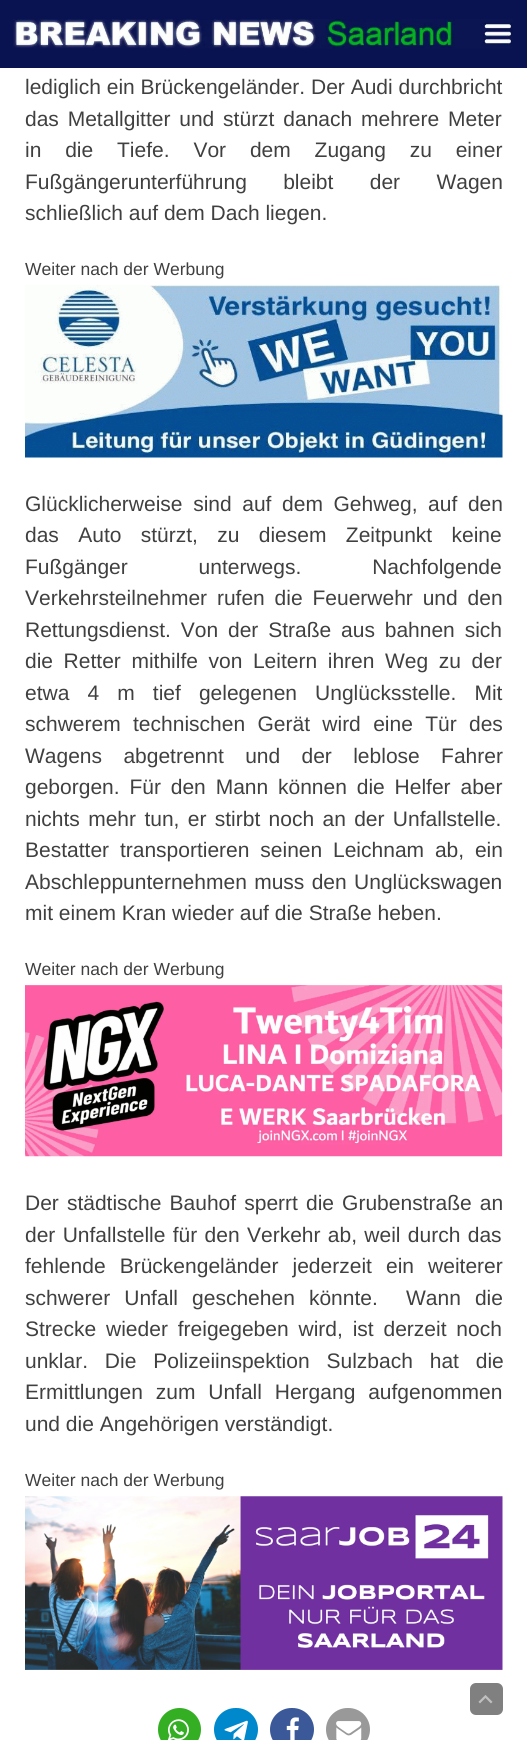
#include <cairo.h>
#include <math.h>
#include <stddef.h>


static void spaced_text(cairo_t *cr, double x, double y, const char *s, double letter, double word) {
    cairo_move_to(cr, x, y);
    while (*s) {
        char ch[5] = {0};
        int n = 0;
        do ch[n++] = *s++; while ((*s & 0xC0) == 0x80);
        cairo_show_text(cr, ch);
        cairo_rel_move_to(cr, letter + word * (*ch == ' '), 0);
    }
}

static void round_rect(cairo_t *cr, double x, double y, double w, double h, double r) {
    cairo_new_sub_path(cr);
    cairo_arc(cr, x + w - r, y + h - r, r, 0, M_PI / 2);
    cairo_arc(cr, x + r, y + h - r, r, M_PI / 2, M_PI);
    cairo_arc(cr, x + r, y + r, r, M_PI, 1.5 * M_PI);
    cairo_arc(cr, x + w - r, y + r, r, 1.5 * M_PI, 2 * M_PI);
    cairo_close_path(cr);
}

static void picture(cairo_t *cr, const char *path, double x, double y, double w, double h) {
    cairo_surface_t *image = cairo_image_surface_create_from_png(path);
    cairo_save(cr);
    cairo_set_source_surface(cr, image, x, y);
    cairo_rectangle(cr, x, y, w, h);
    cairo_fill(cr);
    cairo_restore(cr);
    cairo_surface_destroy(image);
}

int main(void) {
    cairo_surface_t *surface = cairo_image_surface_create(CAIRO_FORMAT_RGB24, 527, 1740);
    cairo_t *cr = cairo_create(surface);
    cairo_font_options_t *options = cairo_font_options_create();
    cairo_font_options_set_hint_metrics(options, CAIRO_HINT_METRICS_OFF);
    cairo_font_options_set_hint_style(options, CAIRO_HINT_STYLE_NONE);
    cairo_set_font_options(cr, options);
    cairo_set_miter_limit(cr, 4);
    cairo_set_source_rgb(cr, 1, 1, 1);
    cairo_paint(cr);
    cairo_set_source_rgb(cr, 0.039, 0.078, 0.318);
    cairo_rectangle(cr, 0, 0, 527, 68);
    cairo_fill(cr);
    picture(cr, "img1.png", 13, 19, 500, 30);
    cairo_select_font_face(cr, "Liberation Sans", CAIRO_FONT_SLANT_NORMAL, CAIRO_FONT_WEIGHT_NORMAL);
    cairo_set_font_size(cr, 21);
    cairo_set_source_rgb(cr, 0.251, 0.251, 0.251);
    cairo_move_to(cr, 25, 94);
    cairo_show_text(cr, "lediglich ein Brückengeländer. Der Audi durchbricht");
    spaced_text(cr, 25, 126, "das Metallgitter und stürzt danach mehrere Meter", 0, 3);
    spaced_text(cr, 25, 157, "in die Tiefe. Vor dem Zugang zu einer", 0, 18);
    spaced_text(cr, 25, 189, "Fußgängerunterführung bleibt der Wagen", 0, 30.5);
    cairo_move_to(cr, 25, 220);
    cairo_show_text(cr, "schließlich auf dem Dach liegen.");
    cairo_set_font_size(cr, 17.5);
    cairo_move_to(cr, 25, 275);
    cairo_show_text(cr, "Weiter nach der Werbung");
    picture(cr, "img2.png", 25, 285, 478, 173);
    cairo_set_font_size(cr, 21);
    spaced_text(cr, 25, 511, "Glücklicherweise sind auf dem Gehweg, auf den", 0, 4.75);
    spaced_text(cr, 25, 542, "das Auto stürzt, zu diesem Zeitpunkt keine", 0, 13.5);
    spaced_text(cr, 25, 574, "Fußgänger unterwegs. Nachfolgende", 0, 65);
    spaced_text(cr, 25, 605, "Verkehrsteilnehmer rufen die Feuerwehr und den", 0, 4);
    spaced_text(cr, 25, 637, "Rettungsdienst. Von der Straße aus bahnen sich", 0, 4);
    spaced_text(cr, 25, 668, "die Retter mithilfe von Leitern ihren Weg zu der", 0, 4.75);
    spaced_text(cr, 25, 700, "etwa 4 m tief gelegenen Unglücksstelle. Mit", 0, 12.25);
    spaced_text(cr, 25, 731, "schwerem technischen Gerät wird eine Tür des", 0, 6.5);
    spaced_text(cr, 25, 763, "Wagens abgetrennt und der leblose Fahrer", 0, 15.5);
    spaced_text(cr, 25, 794, "geborgen. Für den Mann können die Helfer aber", 0, 4);
    spaced_text(cr, 25, 826, "nichts mehr tun, er stirbt noch an der Unfallstelle.", 0, 2.5);
    spaced_text(cr, 25, 857, "Bestatter transportieren seinen Leichnam ab, ein", 0, 5);
    spaced_text(cr, 25, 889, "Abschleppunternehmen muss den Unglückswagen", 0, 1.5);
    cairo_move_to(cr, 25, 920);
    cairo_show_text(cr, "mit einem Kran wieder auf die Straße heben.");
    cairo_set_font_size(cr, 17.5);
    cairo_move_to(cr, 25, 975);
    cairo_show_text(cr, "Weiter nach der Werbung");
    picture(cr, "img3.png", 25, 985, 478, 172);
    cairo_set_font_size(cr, 21);
    spaced_text(cr, 25, 1210, "Der städtische Bauhof sperrt die Grubenstraße an", 0, 2.25);
    spaced_text(cr, 25, 1242, "der Unfallstelle für den Verkehr ab, weil durch das", 0, 1.5);
    spaced_text(cr, 25, 1273, "fehlende Brückengeländer jederzeit ein weiterer", 0, 8.25);
    spaced_text(cr, 25, 1305, "schwerer Unfall geschehen könnte.  Wann die", 0, 8.25);
    spaced_text(cr, 25, 1336, "Strecke wieder freigegeben wird, ist derzeit noch", 0, 4);
    spaced_text(cr, 25, 1368, "unklar. Die Polizeiinspektion Sulzbach hat die", 0, 11);
    spaced_text(cr, 25, 1399, "Ermittlungen zum Unfall Hergang aufgenommen", 0, 7);
    cairo_move_to(cr, 25, 1431);
    cairo_show_text(cr, "und die Angehörigen verständigt.");
    cairo_set_font_size(cr, 17.5);
    cairo_move_to(cr, 25, 1486);
    cairo_show_text(cr, "Weiter nach der Werbung");
    picture(cr, "img4.png", 25, 1496, 478, 174);
    cairo_set_source_rgb(cr, 0.204, 0.686, 0.137);
    cairo_arc(cr, 179.5, 1729.5, 21.5, 0, 2 * M_PI);
    cairo_fill(cr);
    picture(cr, "img5.png", 167, 1719, 22, 21);
    cairo_set_source_rgb(cr, 0, 0.533, 0.8);
    round_rect(cr, 214, 1708, 44, 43, 21.5);
    cairo_fill(cr);
    picture(cr, "img6.png", 224, 1720, 24, 20);
    cairo_set_source_rgb(cr, 0.231, 0.349, 0.596);
    round_rect(cr, 270, 1708, 44, 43, 21.5);
    cairo_fill(cr);
    picture(cr, "img7.png", 286, 1717, 13, 23);
    cairo_set_source_rgb(cr, 0.6, 0.6, 0.6);
    round_rect(cr, 326, 1708, 44, 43, 21.5);
    cairo_fill(cr);
    picture(cr, "img8.png", 336, 1721, 26, 19);
    cairo_set_source_rgb(cr, 0.502, 0.502, 0.502);
    round_rect(cr, 470, 1683, 33, 32, 6);
    cairo_fill(cr);
    picture(cr, "img9.png", 478, 1695, 15, 9);
    cairo_surface_write_to_png(surface, "page.png");
    cairo_font_options_destroy(options);
    cairo_destroy(cr);
    cairo_surface_destroy(surface);
    return 0;
}
